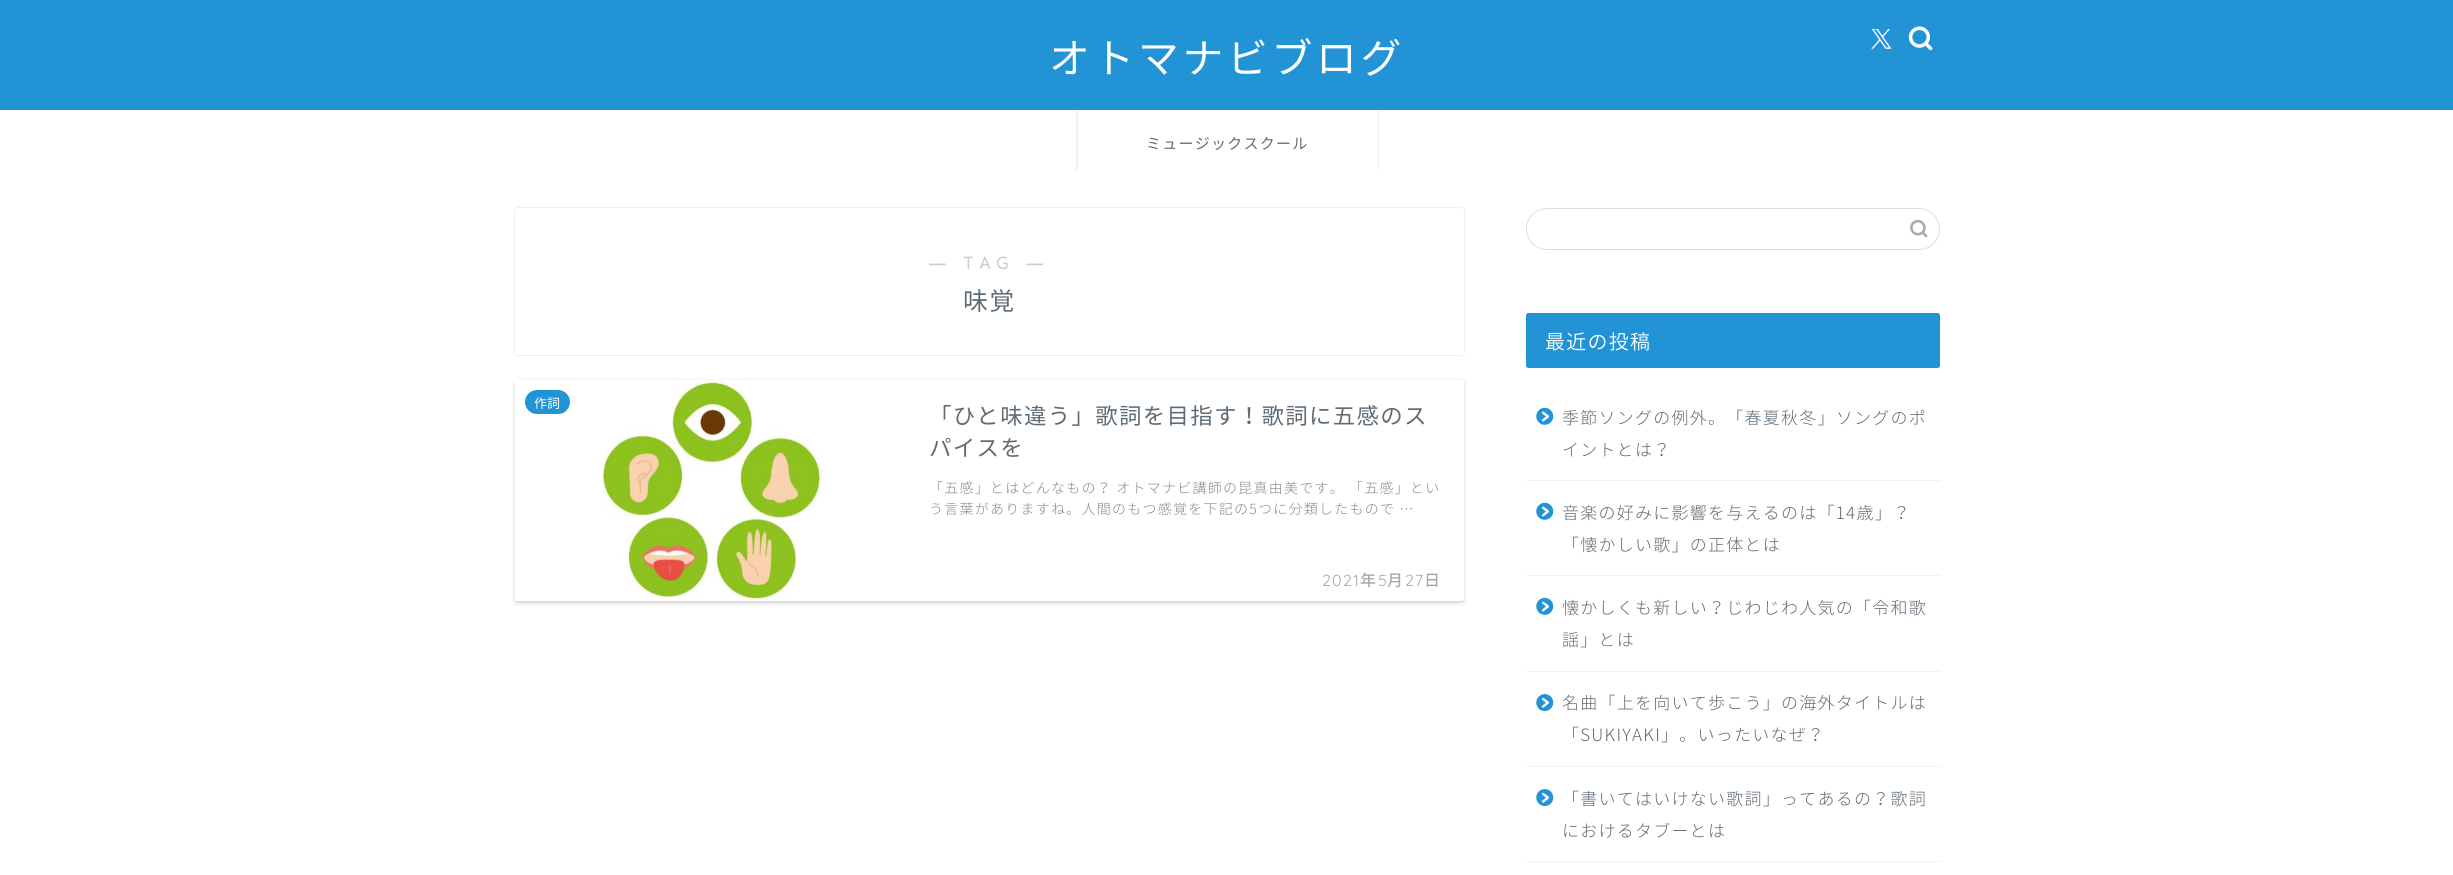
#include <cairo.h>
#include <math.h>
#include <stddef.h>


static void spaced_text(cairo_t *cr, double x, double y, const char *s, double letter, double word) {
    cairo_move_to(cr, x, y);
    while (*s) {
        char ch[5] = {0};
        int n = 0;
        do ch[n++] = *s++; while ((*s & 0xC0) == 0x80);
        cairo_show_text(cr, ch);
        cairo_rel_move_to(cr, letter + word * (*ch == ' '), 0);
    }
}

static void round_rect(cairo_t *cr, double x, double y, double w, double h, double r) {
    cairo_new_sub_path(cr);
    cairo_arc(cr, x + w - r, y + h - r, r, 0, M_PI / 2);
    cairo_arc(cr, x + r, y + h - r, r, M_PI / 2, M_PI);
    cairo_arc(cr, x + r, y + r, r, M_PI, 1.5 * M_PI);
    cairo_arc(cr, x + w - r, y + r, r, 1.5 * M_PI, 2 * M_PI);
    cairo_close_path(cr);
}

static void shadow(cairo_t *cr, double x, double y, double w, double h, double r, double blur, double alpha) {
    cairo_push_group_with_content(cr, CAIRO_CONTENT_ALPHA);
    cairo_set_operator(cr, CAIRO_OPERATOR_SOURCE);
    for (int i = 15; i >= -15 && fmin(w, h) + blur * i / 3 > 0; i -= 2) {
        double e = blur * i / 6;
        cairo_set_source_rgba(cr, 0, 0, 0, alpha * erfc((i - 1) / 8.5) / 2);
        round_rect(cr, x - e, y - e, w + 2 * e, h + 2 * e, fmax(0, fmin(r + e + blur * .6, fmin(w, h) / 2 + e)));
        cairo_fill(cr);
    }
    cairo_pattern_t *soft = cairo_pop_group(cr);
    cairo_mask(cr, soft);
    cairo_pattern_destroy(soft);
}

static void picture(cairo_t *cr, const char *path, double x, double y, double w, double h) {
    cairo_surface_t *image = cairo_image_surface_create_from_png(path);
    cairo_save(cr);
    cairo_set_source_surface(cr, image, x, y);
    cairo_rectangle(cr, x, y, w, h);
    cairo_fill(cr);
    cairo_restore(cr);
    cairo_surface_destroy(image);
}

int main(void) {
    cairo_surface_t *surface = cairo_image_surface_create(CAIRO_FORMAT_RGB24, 2453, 875);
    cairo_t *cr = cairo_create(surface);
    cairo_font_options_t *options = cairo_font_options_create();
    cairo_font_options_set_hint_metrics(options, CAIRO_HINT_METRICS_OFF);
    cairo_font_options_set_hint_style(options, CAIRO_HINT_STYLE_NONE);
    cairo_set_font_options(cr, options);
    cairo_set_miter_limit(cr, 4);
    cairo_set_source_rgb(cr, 1, 1, 1);
    cairo_paint(cr);
    cairo_set_source_rgb(cr, 0.133, 0.58, 0.839);
    cairo_rectangle(cr, 0, 0, 2453, 110);
    cairo_fill(cr);
    cairo_select_font_face(cr, "Noto Sans JP", CAIRO_FONT_SLANT_NORMAL, CAIRO_FONT_WEIGHT_NORMAL);
    cairo_set_font_size(cr, 40.75);
    cairo_set_source_rgb(cr, 1, 1, 1);
    spaced_text(cr, 1049, 73, "オトマナビブログ", 3.75, 0);
    picture(cr, "img1.png", 1871, 29, 21, 20);
    picture(cr, "img2.png", 1908, 26, 25, 25);
    cairo_set_source_rgb(cr, 0.937, 0.937, 0.937);
    cairo_new_path(cr);
    cairo_move_to(cr, 1379, 110);
    cairo_line_to(cr, 1379, 170);
    cairo_line_to(cr, 1378, 170);
    cairo_line_to(cr, 1378, 112);
    cairo_close_path(cr);
    cairo_fill(cr);
    cairo_new_path(cr);
    cairo_move_to(cr, 1076, 170);
    cairo_line_to(cr, 1076, 110);
    cairo_line_to(cr, 1078, 112);
    cairo_line_to(cr, 1078, 170);
    cairo_close_path(cr);
    cairo_fill(cr);
    cairo_set_font_size(cr, 15);
    cairo_set_source_rgb(cr, 0.369, 0.424, 0.467);
    spaced_text(cr, 1146, 149, "ミュージックスクール", 1.25, 0);
    cairo_set_source_rgb(cr, 0, 0, 0);
    shadow(cr, 515, 208, 949, 147, 2.5, 1, 0.18);
    cairo_set_source_rgb(cr, 1, 1, 1);
    round_rect(cr, 515, 208, 949, 147, 2.5);
    cairo_fill(cr);
    cairo_select_font_face(cr, "Liberation Sans", CAIRO_FONT_SLANT_NORMAL, CAIRO_FONT_WEIGHT_BOLD);
    cairo_set_font_size(cr, 17);
    cairo_set_source_rgb(cr, 0.8, 0.8, 0.8);
    spaced_text(cr, 929, 269, "―", 6, 0);
    cairo_select_font_face(cr, "Quicksand", CAIRO_FONT_SLANT_NORMAL, CAIRO_FONT_WEIGHT_BOLD);
    spaced_text(cr, 963, 269, "TAG", 6, 0);
    cairo_select_font_face(cr, "Liberation Sans", CAIRO_FONT_SLANT_NORMAL, CAIRO_FONT_WEIGHT_BOLD);
    spaced_text(cr, 1026, 269, "―", 6, 0);
    cairo_select_font_face(cr, "Noto Sans JP", CAIRO_FONT_SLANT_NORMAL, CAIRO_FONT_WEIGHT_NORMAL);
    cairo_set_font_size(cr, 25);
    cairo_set_source_rgb(cr, 0.369, 0.424, 0.467);
    spaced_text(cr, 963, 310, "味覚", 1.25, 0);
    cairo_set_source_rgb(cr, 0, 0, 0);
    shadow(cr, 515, 381, 949, 222, 2.5, 2, 0.18);
    cairo_set_source_rgb(cr, 1, 1, 1);
    round_rect(cr, 515, 380, 949, 221, 2.5);
    cairo_fill(cr);
    picture(cr, "img3.png", 515, 380, 311, 221);
    cairo_set_source_rgb(cr, 0.133, 0.58, 0.839);
    round_rect(cr, 525, 390, 45, 24, 12);
    cairo_fill(cr);
    cairo_set_font_size(cr, 13);
    cairo_set_source_rgb(cr, 1, 1, 1);
    cairo_move_to(cr, 534, 408);
    cairo_show_text(cr, "作詞");
    cairo_set_font_size(cr, 22.5);
    cairo_set_source_rgb(cr, 0.369, 0.424, 0.467);
    spaced_text(cr, 929, 424, "「ひと味違う」歌詞を目指す！歌詞に五感のス", 1.25, 0);
    spaced_text(cr, 929, 456, "パイスを", 1.25, 0);
    cairo_select_font_face(cr, "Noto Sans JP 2 Light", CAIRO_FONT_SLANT_NORMAL, CAIRO_FONT_WEIGHT_NORMAL);
    cairo_set_font_size(cr, 14);
    cairo_set_source_rgb(cr, 0.533, 0.533, 0.533);
    spaced_text(cr, 929, 493, "「五感」とはどんなもの？ オトマナビ講師の昆真由美です。", 1.25, 0);
    spaced_text(cr, 1349, 493, "「五感」とい", 1.25, 0);
    spaced_text(cr, 929, 514, "う言葉がありますね。人間のもつ感覚を下記の5つに分類したもので …", 1.25, 0);
    cairo_select_font_face(cr, "Quicksand Light", CAIRO_FONT_SLANT_NORMAL, CAIRO_FONT_WEIGHT_NORMAL);
    cairo_set_font_size(cr, 16);
    cairo_set_source_rgb(cr, 0.667, 0.667, 0.667);
    spaced_text(cr, 1322, 586, "2021", 1.25, 0);
    cairo_select_font_face(cr, "Noto Sans JP Medium", CAIRO_FONT_SLANT_NORMAL, CAIRO_FONT_WEIGHT_NORMAL);
    spaced_text(cr, 1360, 586, "年", 1.25, 0);
    cairo_select_font_face(cr, "Quicksand Light", CAIRO_FONT_SLANT_NORMAL, CAIRO_FONT_WEIGHT_NORMAL);
    spaced_text(cr, 1378, 586, "5", 1.25, 0);
    cairo_select_font_face(cr, "Noto Sans JP Medium", CAIRO_FONT_SLANT_NORMAL, CAIRO_FONT_WEIGHT_NORMAL);
    spaced_text(cr, 1387, 586, "月", 1.25, 0);
    cairo_select_font_face(cr, "Quicksand Light", CAIRO_FONT_SLANT_NORMAL, CAIRO_FONT_WEIGHT_NORMAL);
    spaced_text(cr, 1405, 586, "27", 1.25, 0);
    cairo_select_font_face(cr, "Noto Sans JP Medium", CAIRO_FONT_SLANT_NORMAL, CAIRO_FONT_WEIGHT_NORMAL);
    spaced_text(cr, 1424, 586, "日", 1.25, 0);
    round_rect(cr, 1526.5, 208.5, 413, 41, 20.5);
    cairo_set_source_rgb(cr, 0.867, 0.867, 0.867);
    cairo_set_line_width(cr, 1);
    cairo_stroke(cr);
    picture(cr, "img4.png", 1910, 219, 18, 19);
    cairo_set_source_rgb(cr, 0.133, 0.58, 0.839);
    round_rect(cr, 1526, 313, 414, 55, 2.5);
    cairo_fill(cr);
    cairo_select_font_face(cr, "Noto Sans JP Light", CAIRO_FONT_SLANT_NORMAL, CAIRO_FONT_WEIGHT_NORMAL);
    cairo_set_font_size(cr, 20);
    cairo_set_source_rgb(cr, 1, 1, 1);
    spaced_text(cr, 1545, 349, "最近の投稿", 1.25, 0);
    cairo_set_source_rgb(cr, 0.949, 0.949, 0.949);
    cairo_rectangle(cr, 1526, 480, 414, 1);
    cairo_fill(cr);
    picture(cr, "img5.png", 1536, 407, 18, 18);
    cairo_select_font_face(cr, "Noto Sans JP 2 Light", CAIRO_FONT_SLANT_NORMAL, CAIRO_FONT_WEIGHT_NORMAL);
    cairo_set_font_size(cr, 17);
    cairo_set_source_rgb(cr, 0.369, 0.424, 0.467);
    spaced_text(cr, 1562, 424, "季節ソングの例外。「春夏秋冬」ソングのポ", 1.25, 0);
    spaced_text(cr, 1562, 456, "イントとは？", 1.25, 0);
    cairo_set_source_rgb(cr, 0.949, 0.949, 0.949);
    cairo_rectangle(cr, 1526, 575, 414, 1);
    cairo_fill(cr);
    picture(cr, "img5.png", 1536, 502, 18, 18);
    cairo_set_source_rgb(cr, 0.369, 0.424, 0.467);
    spaced_text(cr, 1562, 519, "音楽の好みに影響を与えるのは「14歳」？", 1.25, 0);
    spaced_text(cr, 1562, 551, "「懐かしい歌」の正体とは", 1.25, 0);
    cairo_set_source_rgb(cr, 0.949, 0.949, 0.949);
    cairo_rectangle(cr, 1526, 671, 414, 1);
    cairo_fill(cr);
    picture(cr, "img5.png", 1536, 597, 18, 18);
    cairo_set_source_rgb(cr, 0.369, 0.424, 0.467);
    spaced_text(cr, 1562, 614, "懐かしくも新しい？じわじわ人気の「令和歌", 1.25, 0);
    spaced_text(cr, 1562, 646, "謡」とは", 1.25, 0);
    cairo_set_source_rgb(cr, 0.949, 0.949, 0.949);
    cairo_rectangle(cr, 1526, 766, 414, 1);
    cairo_fill(cr);
    picture(cr, "img6.png", 1536, 694, 18, 18);
    cairo_set_source_rgb(cr, 0.369, 0.424, 0.467);
    spaced_text(cr, 1562, 709, "名曲「上を向いて歩こう」の海外タイトルは", 1.25, 0);
    spaced_text(cr, 1562, 741, "「SUKIYAKI」。いったいなぜ？", 1.25, 0);
    cairo_set_source_rgb(cr, 0.949, 0.949, 0.949);
    cairo_rectangle(cr, 1526, 861, 414, 1);
    cairo_fill(cr);
    picture(cr, "img6.png", 1536, 789, 18, 18);
    cairo_set_source_rgb(cr, 0.369, 0.424, 0.467);
    spaced_text(cr, 1562, 805, "「書いてはいけない歌詞」ってあるの？歌詞", 1.25, 0);
    spaced_text(cr, 1562, 837, "におけるタブーとは", 1.25, 0);
    cairo_surface_write_to_png(surface, "page.png");
    cairo_font_options_destroy(options);
    cairo_destroy(cr);
    cairo_surface_destroy(surface);
    return 0;
}
